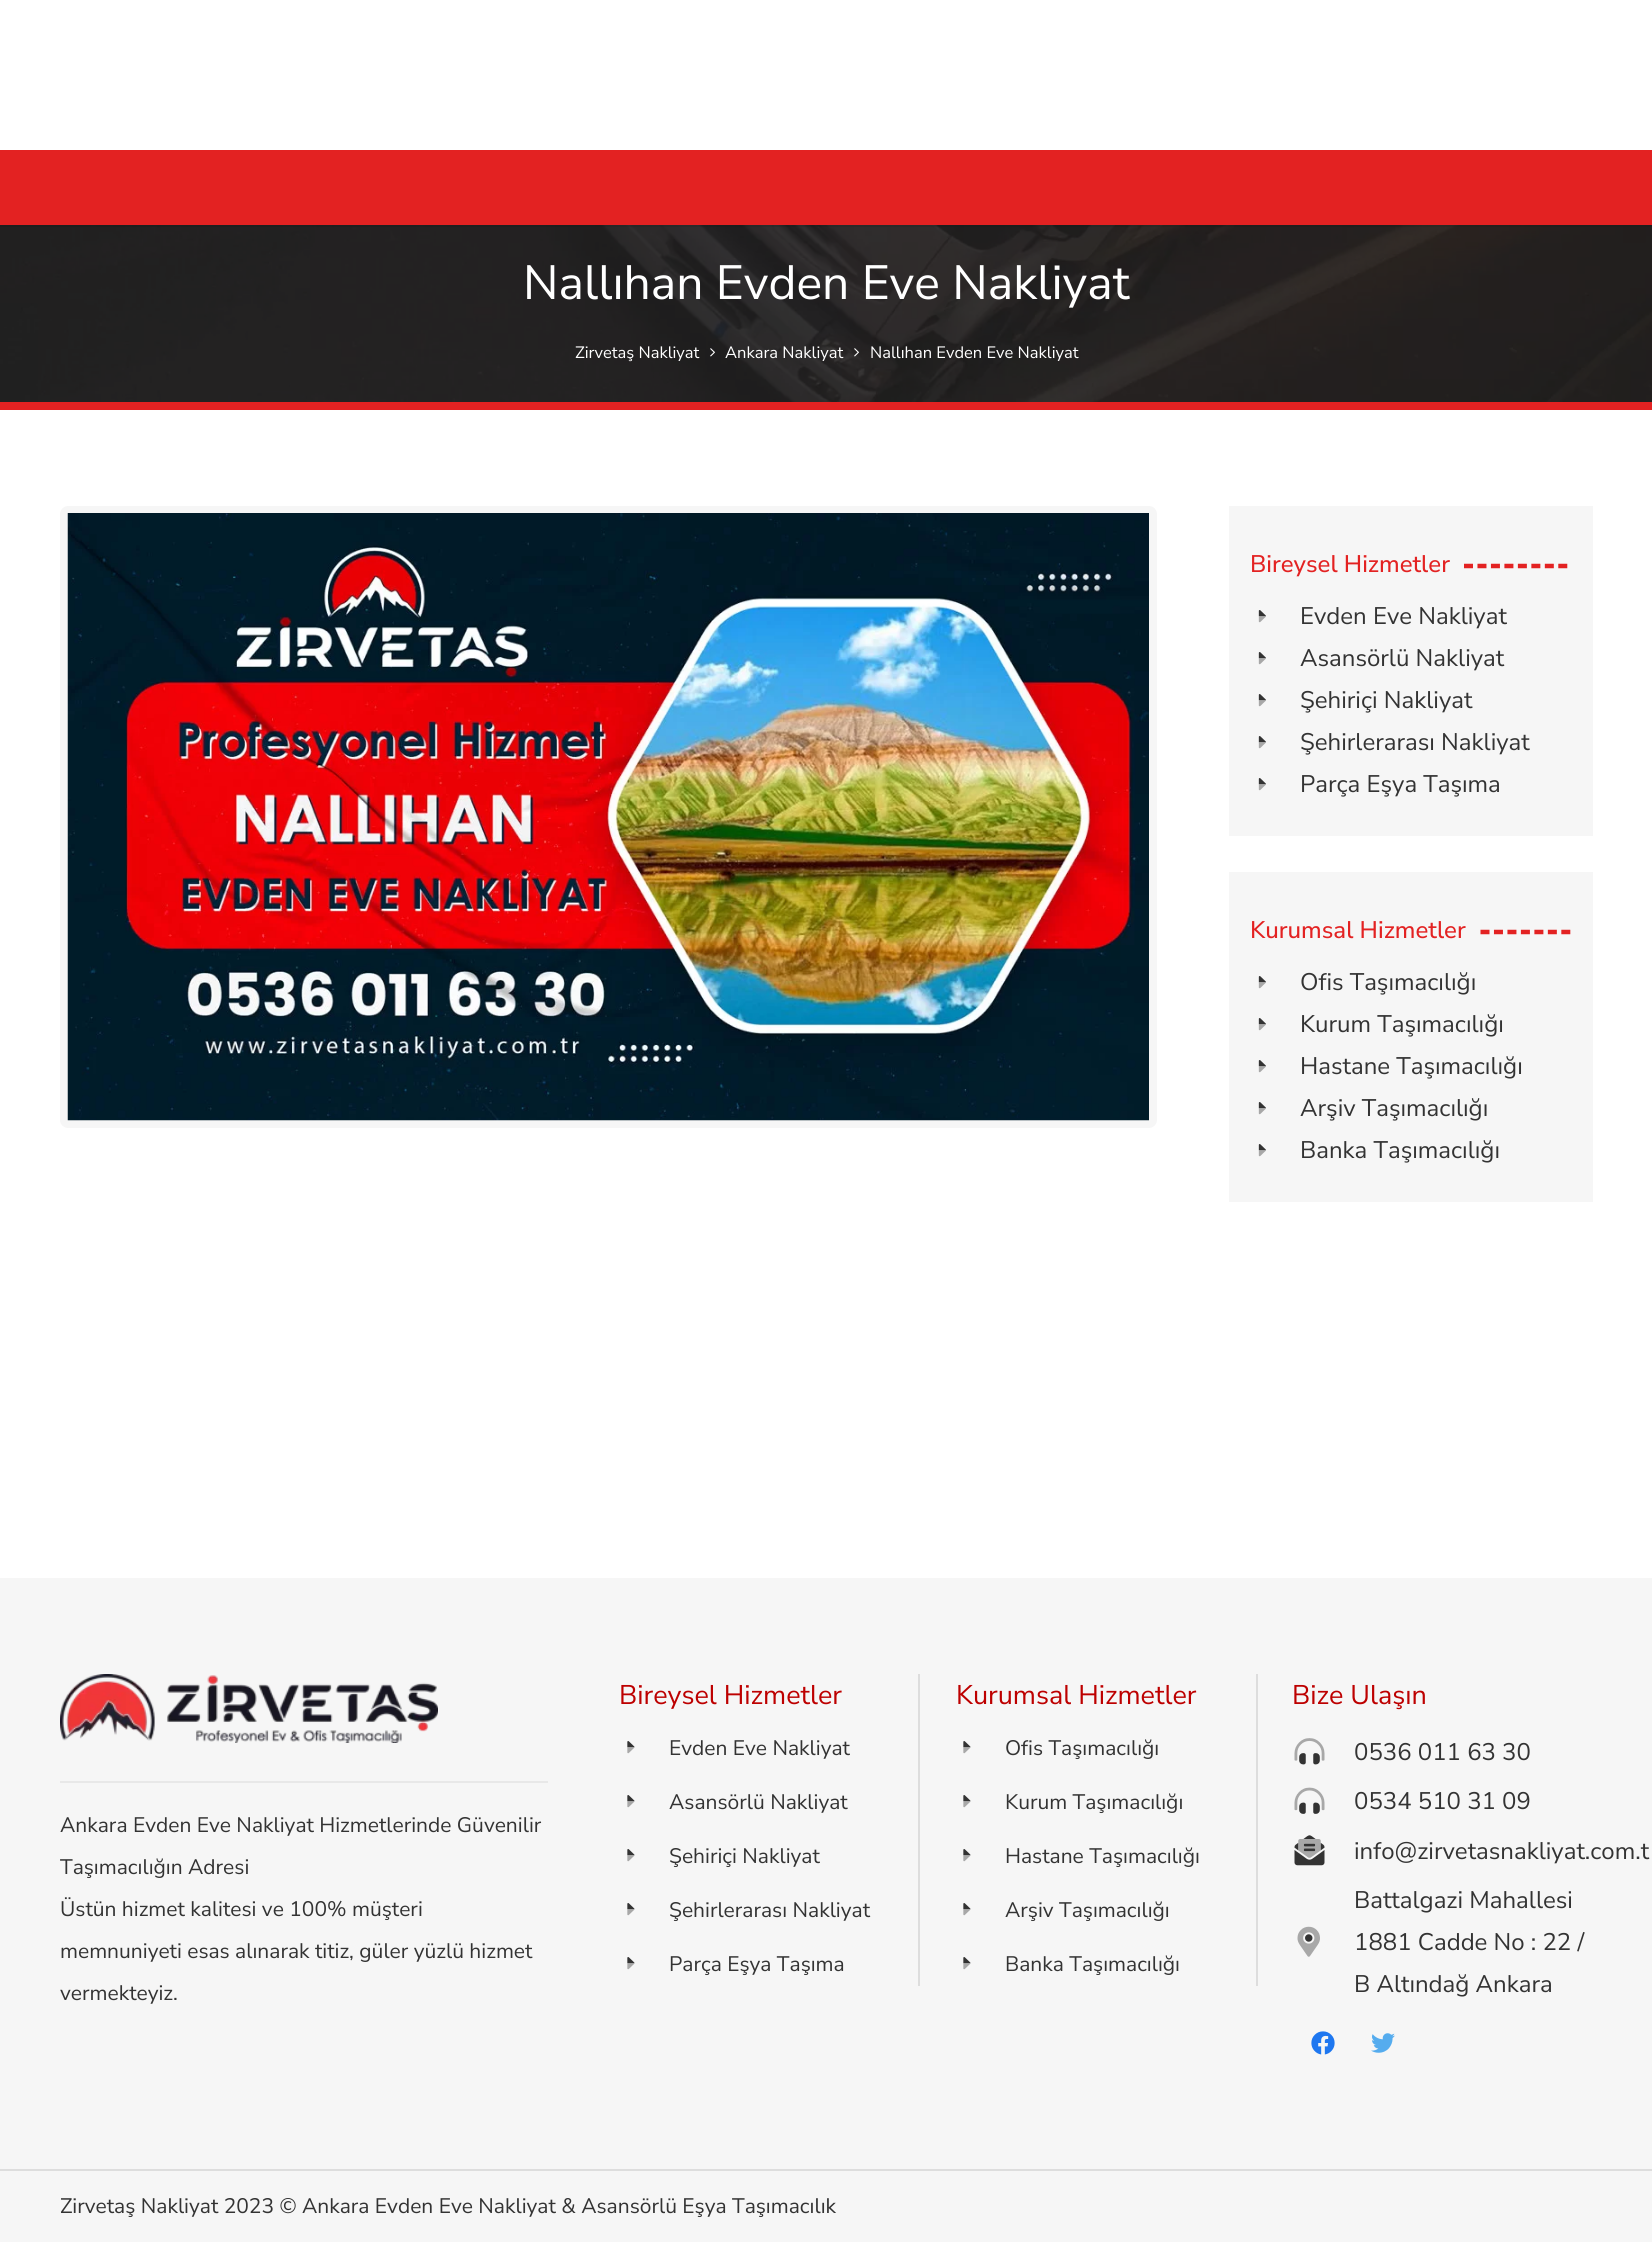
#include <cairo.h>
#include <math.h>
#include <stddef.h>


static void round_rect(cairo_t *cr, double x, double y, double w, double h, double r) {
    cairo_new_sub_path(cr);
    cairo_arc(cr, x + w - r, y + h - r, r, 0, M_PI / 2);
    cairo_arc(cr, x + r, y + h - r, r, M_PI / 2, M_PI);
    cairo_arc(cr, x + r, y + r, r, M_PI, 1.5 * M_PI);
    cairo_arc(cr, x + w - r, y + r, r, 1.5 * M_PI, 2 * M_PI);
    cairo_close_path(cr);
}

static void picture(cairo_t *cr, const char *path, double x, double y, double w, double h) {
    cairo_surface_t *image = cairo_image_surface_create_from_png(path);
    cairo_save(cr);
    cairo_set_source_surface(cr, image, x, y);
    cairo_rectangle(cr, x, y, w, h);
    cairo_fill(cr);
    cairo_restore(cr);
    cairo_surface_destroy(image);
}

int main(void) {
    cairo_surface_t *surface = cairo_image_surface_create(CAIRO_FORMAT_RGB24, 1652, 2242);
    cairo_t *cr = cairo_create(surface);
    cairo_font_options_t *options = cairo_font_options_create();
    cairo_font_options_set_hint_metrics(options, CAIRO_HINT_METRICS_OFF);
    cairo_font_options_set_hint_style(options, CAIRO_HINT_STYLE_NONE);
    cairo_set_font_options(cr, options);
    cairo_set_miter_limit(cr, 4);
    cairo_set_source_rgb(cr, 1, 1, 1);
    cairo_paint(cr);
    picture(cr, "img1.png", 0, 225, 1652, 177);
    cairo_set_source_rgba(cr, 0, 0, 0, 0.08);
    cairo_rectangle(cr, 0, 225, 1652, 2);
    cairo_fill(cr);
    cairo_set_source_rgb(cr, 0.89, 0.133, 0.133);
    cairo_rectangle(cr, 0, 150, 1652, 75);
    cairo_fill(cr);
    cairo_rectangle(cr, 0, 402, 1652, 8);
    cairo_fill(cr);
    cairo_select_font_face(cr, "Nunito Sans", CAIRO_FONT_SLANT_NORMAL, CAIRO_FONT_WEIGHT_NORMAL);
    cairo_set_font_size(cr, 48);
    cairo_set_source_rgb(cr, 1, 1, 1);
    cairo_move_to(cr, 523, 299);
    cairo_show_text(cr, "Nallıhan Evden Eve Nakliyat");
    cairo_set_font_size(cr, 16.5);
    cairo_move_to(cr, 575, 358);
    cairo_show_text(cr, "Zirvetaş Nakliyat");
    picture(cr, "img2.png", 710, 348, 5, 9);
    cairo_move_to(cr, 725, 358);
    cairo_show_text(cr, "Ankara Nakliyat");
    picture(cr, "img3.png", 854, 348, 5, 9);
    cairo_move_to(cr, 870, 358);
    cairo_show_text(cr, "Nallıhan Evden Eve Nakliyat");
    round_rect(cr, 64, 510, 1089, 614, 4);
    cairo_set_source_rgb(cr, 0.961, 0.961, 0.961);
    cairo_set_line_width(cr, 8);
    cairo_stroke(cr);
    picture(cr, "img4.png", 67, 513, 1082, 608);
    cairo_rectangle(cr, 1229, 506, 364, 330);
    cairo_fill(cr);
    cairo_select_font_face(cr, "Nunito Sans Medium", CAIRO_FONT_SLANT_NORMAL, CAIRO_FONT_WEIGHT_NORMAL);
    cairo_set_font_size(cr, 24);
    cairo_set_source_rgb(cr, 0.89, 0.133, 0.133);
    cairo_move_to(cr, 1250, 572);
    cairo_show_text(cr, "Bireysel Hizmetler");
    cairo_save(cr);
    cairo_rectangle(cr, 1251, 536, 320, 60);
    cairo_clip(cr);
    cairo_new_path(cr);
    cairo_move_to(cr, 1464, 566);
    cairo_line_to(cr, 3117, 566);
    cairo_set_line_width(cr, 4.5);
    cairo_set_dash(cr, (double[]){9, 4.47}, 2, 0);
    cairo_stroke(cr);
    cairo_restore(cr);
    picture(cr, "img5.png", 1258, 610, 8, 7);
    picture(cr, "img6.png", 1258, 616, 8, 7);
    cairo_select_font_face(cr, "Nunito Sans", CAIRO_FONT_SLANT_NORMAL, CAIRO_FONT_WEIGHT_NORMAL);
    cairo_set_source_rgb(cr, 0.2, 0.2, 0.2);
    cairo_move_to(cr, 1300, 624);
    cairo_show_text(cr, "Evden Eve Nakliyat");
    picture(cr, "img5.png", 1258, 652, 8, 7);
    picture(cr, "img6.png", 1258, 658, 8, 7);
    cairo_move_to(cr, 1300, 666);
    cairo_show_text(cr, "Asansörlü Nakliyat");
    picture(cr, "img5.png", 1258, 694, 8, 7);
    picture(cr, "img6.png", 1258, 700, 8, 7);
    cairo_move_to(cr, 1300, 708);
    cairo_show_text(cr, "Şehiriçi Nakliyat");
    picture(cr, "img5.png", 1258, 736, 8, 7);
    picture(cr, "img6.png", 1258, 742, 8, 7);
    cairo_move_to(cr, 1300, 750);
    cairo_show_text(cr, "Şehirlerarası Nakliyat");
    picture(cr, "img5.png", 1258, 778, 8, 7);
    picture(cr, "img6.png", 1258, 784, 8, 7);
    cairo_move_to(cr, 1300, 792);
    cairo_show_text(cr, "Parça Eşya Taşıma");
    cairo_set_source_rgb(cr, 0.961, 0.961, 0.961);
    cairo_rectangle(cr, 1229, 872, 364, 330);
    cairo_fill(cr);
    cairo_select_font_face(cr, "Nunito Sans Medium", CAIRO_FONT_SLANT_NORMAL, CAIRO_FONT_WEIGHT_NORMAL);
    cairo_set_source_rgb(cr, 0.89, 0.133, 0.133);
    cairo_move_to(cr, 1250, 938);
    cairo_show_text(cr, "Kurumsal Hizmetler");
    cairo_save(cr);
    cairo_rectangle(cr, 1251, 902, 320, 60);
    cairo_clip(cr);
    cairo_new_path(cr);
    cairo_move_to(cr, 1480.5, 932);
    cairo_line_to(cr, 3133.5, 932);
    cairo_set_line_width(cr, 4.5);
    cairo_set_dash(cr, (double[]){9, 4.47}, 2, 0);
    cairo_stroke(cr);
    cairo_restore(cr);
    picture(cr, "img5.png", 1258, 976, 8, 7);
    picture(cr, "img6.png", 1258, 982, 8, 7);
    cairo_select_font_face(cr, "Nunito Sans", CAIRO_FONT_SLANT_NORMAL, CAIRO_FONT_WEIGHT_NORMAL);
    cairo_set_source_rgb(cr, 0.2, 0.2, 0.2);
    cairo_move_to(cr, 1300, 990);
    cairo_show_text(cr, "Ofis Taşımacılığı");
    picture(cr, "img5.png", 1258, 1018, 8, 7);
    picture(cr, "img6.png", 1258, 1024, 8, 7);
    cairo_move_to(cr, 1300, 1032);
    cairo_show_text(cr, "Kurum Taşımacılığı");
    picture(cr, "img5.png", 1258, 1060, 8, 7);
    picture(cr, "img6.png", 1258, 1066, 8, 7);
    cairo_move_to(cr, 1300, 1074);
    cairo_show_text(cr, "Hastane Taşımacılığı");
    picture(cr, "img5.png", 1258, 1102, 8, 7);
    picture(cr, "img6.png", 1258, 1108, 8, 7);
    cairo_move_to(cr, 1300, 1116);
    cairo_show_text(cr, "Arşiv Taşımacılığı");
    picture(cr, "img5.png", 1258, 1144, 8, 7);
    picture(cr, "img6.png", 1258, 1150, 8, 7);
    cairo_move_to(cr, 1300, 1158);
    cairo_show_text(cr, "Banka Taşımacılığı");
    cairo_set_source_rgb(cr, 0.961, 0.961, 0.961);
    cairo_rectangle(cr, 0, 1578, 1652, 591);
    cairo_fill(cr);
    picture(cr, "img7.png", 60, 1674, 378, 69);
    cairo_set_source_rgb(cr, 0.91, 0.91, 0.91);
    cairo_rectangle(cr, 60, 1781, 488, 2);
    cairo_fill(cr);
    cairo_set_font_size(cr, 21);
    cairo_set_source_rgb(cr, 0.2, 0.2, 0.2);
    cairo_move_to(cr, 60, 1832);
    cairo_show_text(cr, "Ankara Evden Eve Nakliyat Hizmetlerinde Güvenilir");
    cairo_move_to(cr, 60, 1874);
    cairo_show_text(cr, "Taşımacılığın Adresi");
    cairo_move_to(cr, 60, 1916);
    cairo_show_text(cr, "Üstün hizmet kalitesi ve 100% müşteri");
    cairo_move_to(cr, 60, 1958);
    cairo_show_text(cr, "memnuniyeti esas alınarak titiz, güler yüzlü hizmet");
    cairo_move_to(cr, 60, 2000);
    cairo_show_text(cr, "vermekteyiz.");
    cairo_set_source_rgb(cr, 0.867, 0.867, 0.867);
    cairo_rectangle(cr, 918, 1674, 2, 312);
    cairo_fill(cr);
    cairo_set_font_size(cr, 27);
    cairo_set_source_rgb(cr, 0.741, 0, 0);
    cairo_move_to(cr, 619, 1704);
    cairo_show_text(cr, "Bireysel Hizmetler");
    picture(cr, "img8.png", 627, 1741, 8, 7);
    picture(cr, "img9.png", 627, 1747, 8, 7);
    cairo_set_font_size(cr, 21);
    cairo_set_source_rgb(cr, 0.2, 0.2, 0.2);
    cairo_move_to(cr, 669, 1755);
    cairo_show_text(cr, "Evden Eve Nakliyat");
    picture(cr, "img8.png", 627, 1795, 8, 7);
    picture(cr, "img9.png", 627, 1801, 8, 7);
    cairo_move_to(cr, 669, 1809);
    cairo_show_text(cr, "Asansörlü Nakliyat");
    picture(cr, "img8.png", 627, 1849, 8, 7);
    picture(cr, "img9.png", 627, 1855, 8, 7);
    cairo_move_to(cr, 669, 1863);
    cairo_show_text(cr, "Şehiriçi Nakliyat");
    picture(cr, "img8.png", 627, 1903, 8, 7);
    picture(cr, "img9.png", 627, 1909, 8, 7);
    cairo_move_to(cr, 669, 1917);
    cairo_show_text(cr, "Şehirlerarası Nakliyat");
    picture(cr, "img8.png", 627, 1957, 8, 7);
    picture(cr, "img9.png", 627, 1963, 8, 7);
    cairo_move_to(cr, 669, 1971);
    cairo_show_text(cr, "Parça Eşya Taşıma");
    cairo_set_source_rgb(cr, 0.867, 0.867, 0.867);
    cairo_rectangle(cr, 1256, 1674, 2, 312);
    cairo_fill(cr);
    cairo_set_font_size(cr, 27);
    cairo_set_source_rgb(cr, 0.741, 0, 0);
    cairo_move_to(cr, 956, 1704);
    cairo_show_text(cr, "Kurumsal Hizmetler");
    picture(cr, "img8.png", 963, 1741, 8, 7);
    picture(cr, "img9.png", 963, 1747, 8, 7);
    cairo_set_font_size(cr, 21);
    cairo_set_source_rgb(cr, 0.2, 0.2, 0.2);
    cairo_move_to(cr, 1005, 1755);
    cairo_show_text(cr, "Ofis Taşımacılığı");
    picture(cr, "img8.png", 963, 1795, 8, 7);
    picture(cr, "img9.png", 963, 1801, 8, 7);
    cairo_move_to(cr, 1005, 1809);
    cairo_show_text(cr, "Kurum Taşımacılığı");
    picture(cr, "img8.png", 963, 1849, 8, 7);
    picture(cr, "img9.png", 963, 1855, 8, 7);
    cairo_move_to(cr, 1005, 1863);
    cairo_show_text(cr, "Hastane Taşımacılığı");
    picture(cr, "img8.png", 963, 1903, 8, 7);
    picture(cr, "img9.png", 963, 1909, 8, 7);
    cairo_move_to(cr, 1005, 1917);
    cairo_show_text(cr, "Arşiv Taşımacılığı");
    picture(cr, "img8.png", 963, 1957, 8, 7);
    picture(cr, "img9.png", 963, 1963, 8, 7);
    cairo_move_to(cr, 1005, 1971);
    cairo_show_text(cr, "Banka Taşımacılığı");
    cairo_set_font_size(cr, 27);
    cairo_set_source_rgb(cr, 0.741, 0, 0);
    cairo_move_to(cr, 1292, 1704);
    cairo_show_text(cr, "Bize Ulaşın");
    picture(cr, "img11.png", 1299, 1753, 21, 12);
    picture(cr, "img10.png", 1294, 1738, 31, 23);
    cairo_set_font_size(cr, 24);
    cairo_set_source_rgb(cr, 0.2, 0.2, 0.2);
    cairo_move_to(cr, 1354, 1760);
    cairo_show_text(cr, "0536 011 63 30");
    picture(cr, "img13.png", 1299, 1802, 21, 12);
    picture(cr, "img12.png", 1294, 1787, 31, 24);
    cairo_move_to(cr, 1354, 1809);
    cairo_show_text(cr, "0534 510 31 09");
    picture(cr, "img14.png", 1294, 1835, 31, 31);
    picture(cr, "img15.png", 1298, 1839, 23, 19);
    cairo_move_to(cr, 1354, 1859);
    cairo_show_text(cr, "info@zirvetasnakliyat.com.t");
    picture(cr, "img17.png", 1305, 1934, 8, 8);
    picture(cr, "img16.png", 1297, 1926, 23, 31);
    cairo_move_to(cr, 1354, 1908);
    cairo_show_text(cr, "Battalgazi Mahallesi");
    cairo_move_to(cr, 1354, 1950);
    cairo_show_text(cr, "1881 Cadde No : 22 /");
    cairo_move_to(cr, 1354, 1992);
    cairo_show_text(cr, "B Altındağ Ankara");
    picture(cr, "img18.png", 1311, 2031, 24, 24);
    picture(cr, "img19.png", 1371, 2033, 24, 20);
    cairo_set_source_rgb(cr, 0.961, 0.961, 0.961);
    cairo_rectangle(cr, 0, 2171, 1652, 71);
    cairo_fill(cr);
    cairo_set_source_rgb(cr, 0.867, 0.867, 0.867);
    cairo_rectangle(cr, 0, 2169, 1652, 2);
    cairo_fill(cr);
    cairo_set_font_size(cr, 21);
    cairo_set_source_rgb(cr, 0.2, 0.2, 0.2);
    cairo_move_to(cr, 60, 2213);
    cairo_show_text(cr, "Zirvetaş Nakliyat 2023 © Ankara Evden Eve Nakliyat & Asansörlü Eşya Taşımacılık");
    cairo_surface_write_to_png(surface, "page.png");
    cairo_font_options_destroy(options);
    cairo_destroy(cr);
    cairo_surface_destroy(surface);
    return 0;
}
